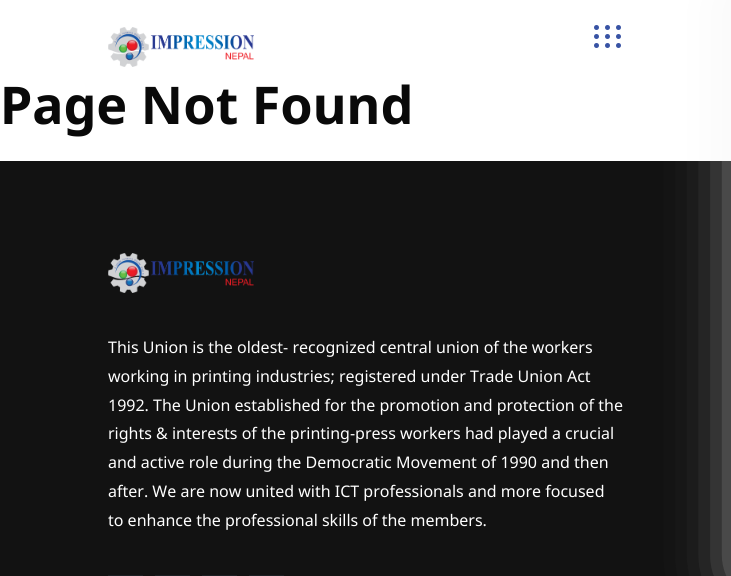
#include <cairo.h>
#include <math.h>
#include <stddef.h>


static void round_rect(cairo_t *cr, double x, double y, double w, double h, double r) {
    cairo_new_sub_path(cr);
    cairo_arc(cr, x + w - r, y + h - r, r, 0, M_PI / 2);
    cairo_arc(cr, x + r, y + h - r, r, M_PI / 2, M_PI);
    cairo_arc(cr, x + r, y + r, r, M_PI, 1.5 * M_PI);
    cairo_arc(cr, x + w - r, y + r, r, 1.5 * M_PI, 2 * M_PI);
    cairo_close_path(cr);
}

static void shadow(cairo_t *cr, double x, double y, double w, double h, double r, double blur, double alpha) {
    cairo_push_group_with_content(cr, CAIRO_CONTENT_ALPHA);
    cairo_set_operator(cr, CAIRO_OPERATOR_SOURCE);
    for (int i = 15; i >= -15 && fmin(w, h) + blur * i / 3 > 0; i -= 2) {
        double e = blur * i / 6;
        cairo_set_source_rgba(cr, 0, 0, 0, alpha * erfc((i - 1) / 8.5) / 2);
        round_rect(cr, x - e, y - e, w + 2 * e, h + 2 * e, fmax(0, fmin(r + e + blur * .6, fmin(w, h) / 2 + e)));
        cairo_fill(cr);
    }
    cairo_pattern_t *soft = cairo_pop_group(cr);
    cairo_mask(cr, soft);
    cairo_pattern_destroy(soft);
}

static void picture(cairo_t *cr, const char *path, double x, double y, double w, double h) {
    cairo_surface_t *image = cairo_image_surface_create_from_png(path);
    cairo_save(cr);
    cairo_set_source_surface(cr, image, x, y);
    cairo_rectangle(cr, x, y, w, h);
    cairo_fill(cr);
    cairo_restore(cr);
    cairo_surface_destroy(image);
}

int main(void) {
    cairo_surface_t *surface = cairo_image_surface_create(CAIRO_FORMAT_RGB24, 731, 576);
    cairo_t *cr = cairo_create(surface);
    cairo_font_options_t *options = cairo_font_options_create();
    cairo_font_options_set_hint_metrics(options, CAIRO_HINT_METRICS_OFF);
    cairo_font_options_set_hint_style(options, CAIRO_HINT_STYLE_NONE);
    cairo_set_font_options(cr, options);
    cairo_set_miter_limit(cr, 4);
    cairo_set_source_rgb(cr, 1, 1, 1);
    cairo_paint(cr);
    picture(cr, "img1.png", 108, 27, 146, 40);
    cairo_set_source_rgb(cr, 0.22, 0.325, 0.643);
    cairo_arc(cr, 596.5, 27.5, 2.5, 0, 2 * M_PI);
    cairo_fill(cr);
    cairo_arc(cr, 607.5, 27.5, 2.5, 0, 2 * M_PI);
    cairo_fill(cr);
    cairo_arc(cr, 618.5, 27.5, 2.5, 0, 2 * M_PI);
    cairo_fill(cr);
    cairo_arc(cr, 596.5, 36.5, 2.5, 0, 2 * M_PI);
    cairo_fill(cr);
    cairo_arc(cr, 607.5, 36.5, 2.5, 0, 2 * M_PI);
    cairo_fill(cr);
    cairo_arc(cr, 618.5, 36.5, 2.5, 0, 2 * M_PI);
    cairo_fill(cr);
    cairo_arc(cr, 596.5, 45.5, 2.5, 0, 2 * M_PI);
    cairo_fill(cr);
    cairo_arc(cr, 607.5, 45.5, 2.5, 0, 2 * M_PI);
    cairo_fill(cr);
    cairo_arc(cr, 618.5, 45.5, 2.5, 0, 2 * M_PI);
    cairo_fill(cr);
    cairo_set_source_rgb(cr, 0.071, 0.071, 0.071);
    cairo_rectangle(cr, 0, 161, 731, 415);
    cairo_fill(cr);
    cairo_set_source_rgb(cr, 0.933, 0.933, 0.933);
    shadow(cr, 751, 0, 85, 576, 0, 35, 1);
    cairo_select_font_face(cr, "Noto Sans", CAIRO_FONT_SLANT_NORMAL, CAIRO_FONT_WEIGHT_BOLD);
    cairo_set_font_size(cr, 52);
    cairo_set_source_rgb(cr, 0.039, 0.039, 0.039);
    cairo_move_to(cr, 0, 124);
    cairo_show_text(cr, "Page Not Found");
    picture(cr, "img2.png", 108, 253, 146, 40);
    cairo_select_font_face(cr, "Noto Sans", CAIRO_FONT_SLANT_NORMAL, CAIRO_FONT_WEIGHT_NORMAL);
    cairo_set_font_size(cr, 16);
    cairo_set_source_rgb(cr, 1, 1, 1);
    cairo_move_to(cr, 108, 353);
    cairo_show_text(cr, "This Union is the oldest- recognized central union of the workers");
    cairo_move_to(cr, 108, 382);
    cairo_show_text(cr, "working in printing industries; registered under Trade Union Act");
    cairo_move_to(cr, 108, 411);
    cairo_show_text(cr, "1992. The Union established for the promotion and protection of the");
    cairo_move_to(cr, 108, 439);
    cairo_show_text(cr, "rights & interests of the printing-press workers had played a crucial");
    cairo_move_to(cr, 108, 468);
    cairo_show_text(cr, "and active role during the Democratic Movement of 1990 and then");
    cairo_move_to(cr, 108, 497);
    cairo_show_text(cr, "after. We are now united with ICT professionals and more focused");
    cairo_move_to(cr, 108, 526);
    cairo_show_text(cr, "to enhance the professional skills of the members.");
    cairo_set_source_rgb(cr, 0.11, 0.125, 0.141);
    cairo_rectangle(cr, 108, 575, 35, 1);
    cairo_fill(cr);
    cairo_rectangle(cr, 155, 575, 35, 1);
    cairo_fill(cr);
    cairo_rectangle(cr, 202, 575, 35, 1);
    cairo_fill(cr);
    cairo_rectangle(cr, 249, 575, 35, 1);
    cairo_fill(cr);
    cairo_surface_write_to_png(surface, "page.png");
    cairo_font_options_destroy(options);
    cairo_destroy(cr);
    cairo_surface_destroy(surface);
    return 0;
}
